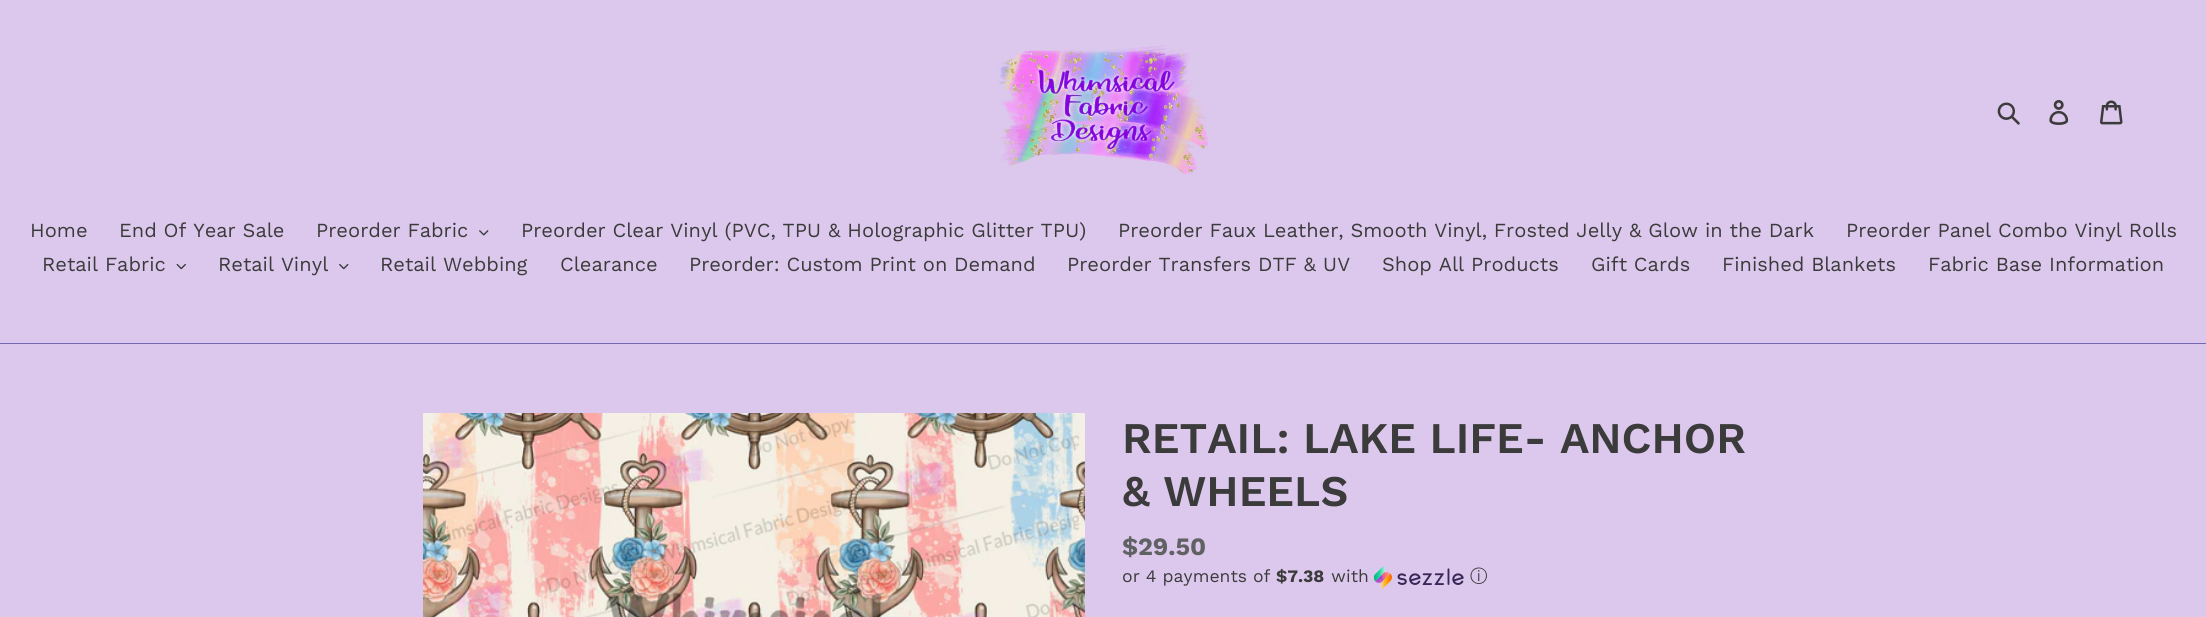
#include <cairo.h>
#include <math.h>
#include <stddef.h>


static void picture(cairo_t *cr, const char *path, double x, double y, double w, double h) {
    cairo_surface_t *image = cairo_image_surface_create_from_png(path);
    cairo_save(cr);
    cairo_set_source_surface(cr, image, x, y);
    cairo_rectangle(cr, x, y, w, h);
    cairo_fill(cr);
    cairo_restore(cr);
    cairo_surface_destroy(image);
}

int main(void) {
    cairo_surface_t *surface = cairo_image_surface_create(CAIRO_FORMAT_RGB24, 2206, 617);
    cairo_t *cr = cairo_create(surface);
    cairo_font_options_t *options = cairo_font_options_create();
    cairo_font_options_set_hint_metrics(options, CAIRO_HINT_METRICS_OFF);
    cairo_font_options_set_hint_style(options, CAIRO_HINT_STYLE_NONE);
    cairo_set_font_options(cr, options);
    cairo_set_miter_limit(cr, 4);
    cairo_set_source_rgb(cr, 0.867, 0.784, 0.929);
    cairo_paint(cr);
    picture(cr, "img1.png", 997, 45, 212, 130);
    picture(cr, "img2.png", 1997, 102, 23, 23);
    picture(cr, "img3.png", 2049, 100, 20, 25);
    picture(cr, "img4.png", 2100, 100, 23, 25);
    cairo_set_source_rgb(cr, 0.463, 0.4, 0.702);
    cairo_rectangle(cr, 0, 343, 2206, 1);
    cairo_fill(cr);
    cairo_select_font_face(cr, "Work Sans", CAIRO_FONT_SLANT_NORMAL, CAIRO_FONT_WEIGHT_NORMAL);
    cairo_set_font_size(cr, 20);
    cairo_set_source_rgb(cr, 0.231, 0.231, 0.231);
    cairo_move_to(cr, 30, 237);
    cairo_show_text(cr, "Home");
    cairo_move_to(cr, 119, 237);
    cairo_show_text(cr, "End Of Year Sale");
    cairo_move_to(cr, 316, 237);
    cairo_show_text(cr, "Preorder Fabric");
    picture(cr, "img5.png", 479, 230, 10, 6);
    cairo_move_to(cr, 521, 237);
    cairo_show_text(cr, "Preorder Clear Vinyl (PVC, TPU & Holographic Glitter TPU)");
    cairo_move_to(cr, 1118, 237);
    cairo_show_text(cr, "Preorder Faux Leather, Smooth Vinyl, Frosted Jelly & Glow in the Dark");
    cairo_move_to(cr, 1846, 237);
    cairo_show_text(cr, "Preorder Panel Combo Vinyl Rolls");
    cairo_move_to(cr, 42, 271);
    cairo_show_text(cr, "Retail Fabric");
    picture(cr, "img6.png", 176, 263, 10, 7);
    cairo_move_to(cr, 218, 271);
    cairo_show_text(cr, "Retail Vinyl");
    picture(cr, "img7.png", 339, 263, 10, 7);
    cairo_move_to(cr, 380, 271);
    cairo_show_text(cr, "Retail Webbing");
    cairo_move_to(cr, 560, 271);
    cairo_show_text(cr, "Clearance");
    cairo_move_to(cr, 689, 271);
    cairo_show_text(cr, "Preorder: Custom Print on Demand");
    cairo_move_to(cr, 1067, 271);
    cairo_show_text(cr, "Preorder Transfers DTF & UV");
    cairo_move_to(cr, 1382, 271);
    cairo_show_text(cr, "Shop All Products");
    cairo_move_to(cr, 1591, 271);
    cairo_show_text(cr, "Gift Cards");
    cairo_move_to(cr, 1722, 271);
    cairo_show_text(cr, "Finished Blankets");
    cairo_move_to(cr, 1928, 271);
    cairo_show_text(cr, "Fabric Base Information");
    picture(cr, "img8.png", 423, 413, 662, 204);
    cairo_select_font_face(cr, "Work Sans SemiBold", CAIRO_FONT_SLANT_NORMAL, CAIRO_FONT_WEIGHT_NORMAL);
    cairo_set_font_size(cr, 43.75);
    cairo_move_to(cr, 1122, 453);
    cairo_show_text(cr, "RETAIL: LAKE LIFE- ANCHOR");
    cairo_move_to(cr, 1122, 506);
    cairo_show_text(cr, "& WHEELS");
    cairo_select_font_face(cr, "Work Sans", CAIRO_FONT_SLANT_NORMAL, CAIRO_FONT_WEIGHT_BOLD);
    cairo_set_font_size(cr, 25);
    cairo_set_source_rgb(cr, 0.376, 0.38, 0.388);
    cairo_move_to(cr, 1122, 555);
    cairo_show_text(cr, "$29.50");
    cairo_select_font_face(cr, "Work Sans", CAIRO_FONT_SLANT_NORMAL, CAIRO_FONT_WEIGHT_NORMAL);
    cairo_set_font_size(cr, 17.5);
    cairo_set_source_rgb(cr, 0.231, 0.231, 0.231);
    cairo_move_to(cr, 1122, 582);
    cairo_show_text(cr, "or 4 payments of");
    cairo_select_font_face(cr, "Work Sans", CAIRO_FONT_SLANT_NORMAL, CAIRO_FONT_WEIGHT_BOLD);
    cairo_move_to(cr, 1276, 582);
    cairo_show_text(cr, "$7.38");
    cairo_select_font_face(cr, "Work Sans", CAIRO_FONT_SLANT_NORMAL, CAIRO_FONT_WEIGHT_NORMAL);
    cairo_move_to(cr, 1331, 582);
    cairo_show_text(cr, "with");
    picture(cr, "img9.png", 1374, 566, 90, 23);
    cairo_select_font_face(cr, "WenQuanYi Zen Hei Medium", CAIRO_FONT_SLANT_NORMAL, CAIRO_FONT_WEIGHT_NORMAL);
    cairo_move_to(cr, 1470, 582);
    cairo_show_text(cr, "ⓘ");
    cairo_surface_write_to_png(surface, "page.png");
    cairo_font_options_destroy(options);
    cairo_destroy(cr);
    cairo_surface_destroy(surface);
    return 0;
}
